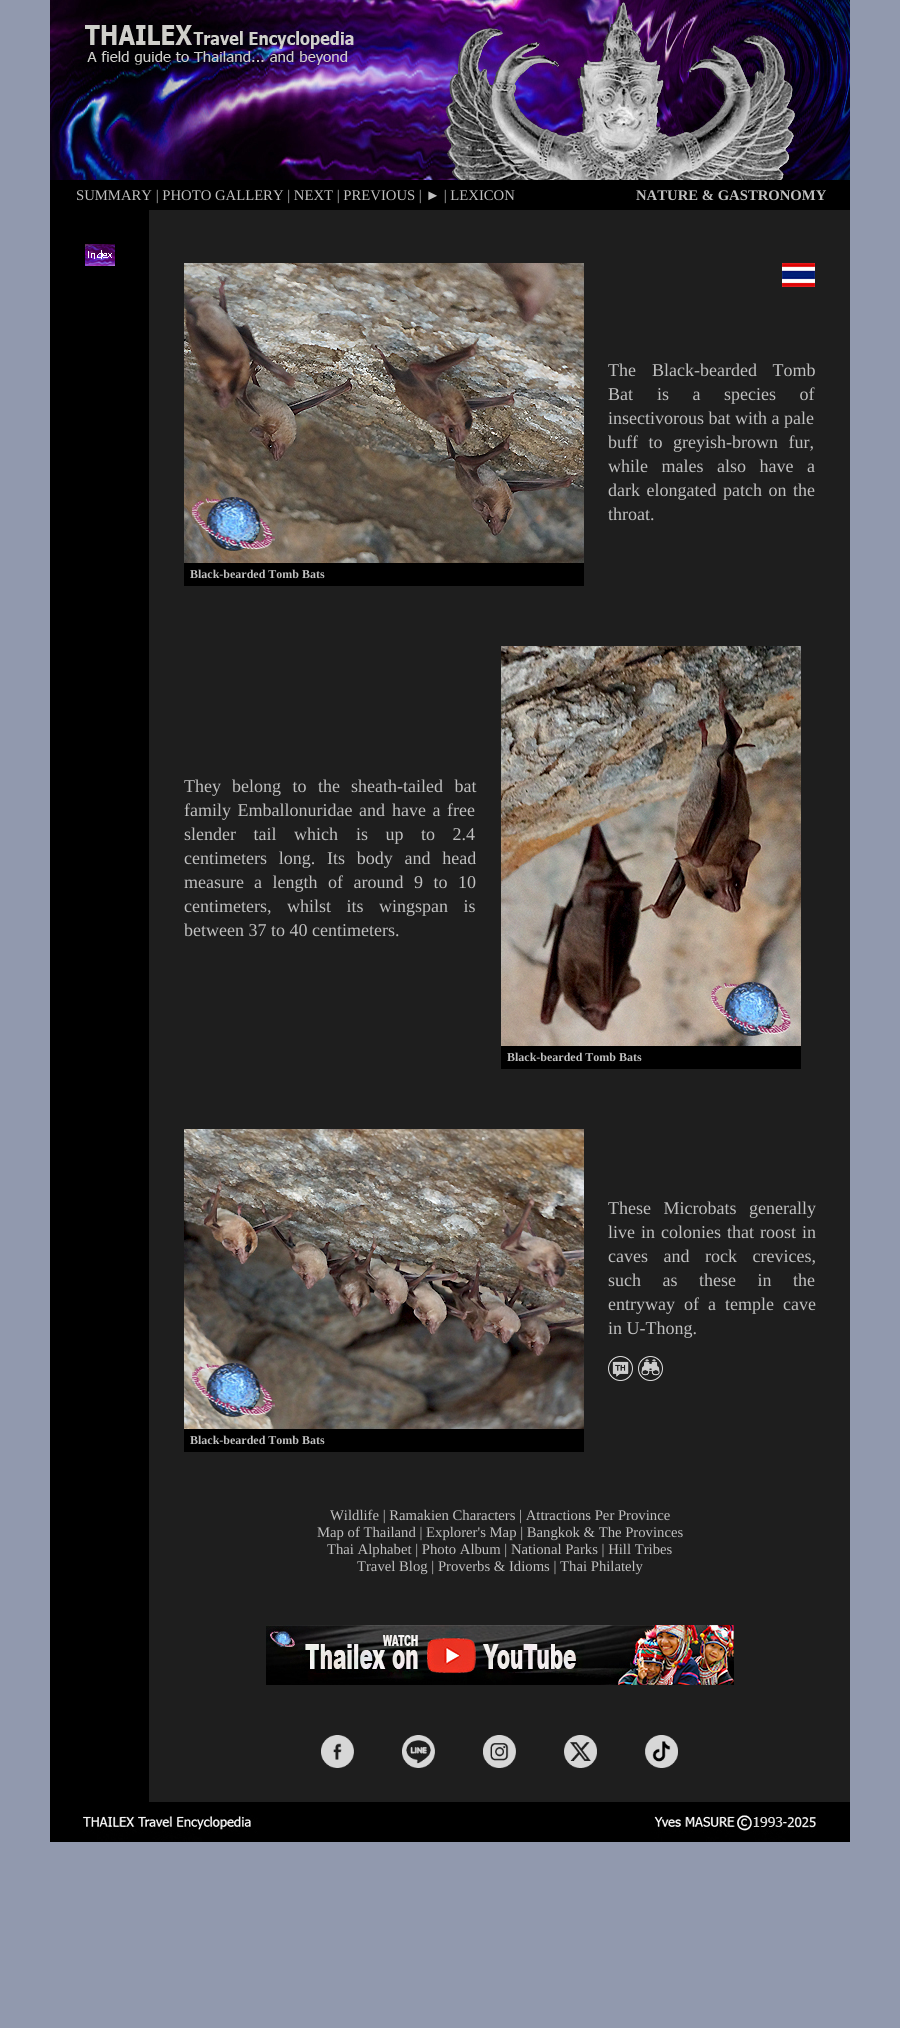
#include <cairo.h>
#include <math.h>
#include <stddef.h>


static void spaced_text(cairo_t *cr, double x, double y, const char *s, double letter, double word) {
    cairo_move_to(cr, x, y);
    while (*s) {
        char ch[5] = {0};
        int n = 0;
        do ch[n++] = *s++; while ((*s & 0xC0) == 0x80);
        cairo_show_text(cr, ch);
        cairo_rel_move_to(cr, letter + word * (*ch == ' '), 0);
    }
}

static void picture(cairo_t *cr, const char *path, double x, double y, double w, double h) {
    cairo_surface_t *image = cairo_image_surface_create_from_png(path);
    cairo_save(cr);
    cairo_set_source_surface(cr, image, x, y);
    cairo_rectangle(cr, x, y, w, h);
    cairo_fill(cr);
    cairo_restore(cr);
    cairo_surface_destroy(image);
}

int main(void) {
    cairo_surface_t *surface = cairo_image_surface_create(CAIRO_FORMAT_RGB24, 900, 2028);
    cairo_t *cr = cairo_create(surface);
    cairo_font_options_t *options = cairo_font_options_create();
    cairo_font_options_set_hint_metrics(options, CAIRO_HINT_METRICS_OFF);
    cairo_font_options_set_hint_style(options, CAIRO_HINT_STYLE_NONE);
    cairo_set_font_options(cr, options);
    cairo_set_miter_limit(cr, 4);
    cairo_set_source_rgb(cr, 0.569, 0.6, 0.682);
    cairo_paint(cr);
    picture(cr, "img1.png", 50, 0, 800, 180);
    cairo_set_source_rgb(cr, 0, 0, 0);
    cairo_rectangle(cr, 50, 180, 800, 30);
    cairo_fill(cr);
    cairo_select_font_face(cr, "Liberation Serif", CAIRO_FONT_SLANT_NORMAL, CAIRO_FONT_WEIGHT_NORMAL);
    cairo_set_font_size(cr, 14.7);
    cairo_set_source_rgb(cr, 0.753, 0.753, 0.753);
    cairo_move_to(cr, 76, 200);
    cairo_show_text(cr, "SUMMARY | PHOTO GALLERY | NEXT | PREVIOUS | ► | LEXICON");
    cairo_select_font_face(cr, "Liberation Serif", CAIRO_FONT_SLANT_NORMAL, CAIRO_FONT_WEIGHT_BOLD);
    cairo_move_to(cr, 636, 200);
    cairo_show_text(cr, "NATURE & GASTRONOMY");
    cairo_set_source_rgb(cr, 0, 0, 0);
    cairo_rectangle(cr, 50, 210, 99, 1592);
    cairo_fill(cr);
    picture(cr, "img2.png", 85, 244, 30, 22);
    cairo_set_source_rgb(cr, 0.118, 0.118, 0.118);
    cairo_rectangle(cr, 149, 210, 701, 1592);
    cairo_fill(cr);
    cairo_select_font_face(cr, "Liberation Serif", CAIRO_FONT_SLANT_NORMAL, CAIRO_FONT_WEIGHT_NORMAL);
    cairo_set_font_size(cr, 18);
    cairo_set_source_rgb(cr, 0.753, 0.753, 0.753);
    cairo_move_to(cr, 608, 376);
    cairo_show_text(cr, "The");
    spaced_text(cr, 652, 376, "Black-bearded Tomb", 0, 11);
    cairo_move_to(cr, 608, 400);
    cairo_show_text(cr, "Bat");
    spaced_text(cr, 657, 400, "is a", 0, 19);
    spaced_text(cr, 724, 400, "species of", 0, 19);
    cairo_move_to(cr, 608, 424);
    cairo_show_text(cr, "insectivorous bat");
    cairo_move_to(cr, 735, 424);
    cairo_show_text(cr, "with a pale");
    spaced_text(cr, 608, 448, "buff to greyish-brown fur,", 0, 6);
    spaced_text(cr, 608, 472, "while males also have a", 0, 9);
    spaced_text(cr, 608, 496, "dark elongated", 0, 2);
    spaced_text(cr, 723, 496, "patch on the", 0, 2);
    cairo_move_to(cr, 608, 520);
    cairo_show_text(cr, "throat.");
    picture(cr, "img3.png", 782, 263, 33, 24);
    picture(cr, "img4.png", 184, 263, 400, 300);
    cairo_set_source_rgb(cr, 0, 0, 0);
    cairo_rectangle(cr, 184, 563, 400, 23);
    cairo_fill(cr);
    cairo_select_font_face(cr, "Liberation Serif", CAIRO_FONT_SLANT_NORMAL, CAIRO_FONT_WEIGHT_BOLD);
    cairo_set_font_size(cr, 12);
    cairo_set_source_rgb(cr, 0.753, 0.753, 0.753);
    cairo_move_to(cr, 190, 578);
    cairo_show_text(cr, "Black-bearded Tomb Bats");
    cairo_select_font_face(cr, "Liberation Serif", CAIRO_FONT_SLANT_NORMAL, CAIRO_FONT_WEIGHT_NORMAL);
    cairo_set_font_size(cr, 18);
    cairo_move_to(cr, 184, 792);
    cairo_show_text(cr, "They");
    spaced_text(cr, 232, 792, "belong to the", 0, 7);
    spaced_text(cr, 351, 792, "sheath-tailed bat", 0, 7);
    spaced_text(cr, 184, 816, "family Emballonuridae and", 0, 2);
    spaced_text(cr, 392, 816, "have a free", 0, 2);
    spaced_text(cr, 184, 840, "slender tail which", 0, 13);
    spaced_text(cr, 356, 840, "is up to 2.4", 0, 13);
    spaced_text(cr, 184, 864, "centimeters long. Its body and head", 0, 7.25);
    cairo_move_to(cr, 184, 888);
    cairo_show_text(cr, "measure");
    spaced_text(cr, 254, 888, "a length of around 9 to 10", 0, 6);
    spaced_text(cr, 184, 912, "centimeters, whilst its", 0, 11);
    spaced_text(cr, 379, 912, "wingspan is", 0, 11);
    cairo_move_to(cr, 184, 936);
    cairo_show_text(cr, "between 37 to 40 centimeters.");
    picture(cr, "img5.png", 501, 646, 300, 400);
    cairo_set_source_rgb(cr, 0, 0, 0);
    cairo_rectangle(cr, 501, 1046, 300, 23);
    cairo_fill(cr);
    cairo_select_font_face(cr, "Liberation Serif", CAIRO_FONT_SLANT_NORMAL, CAIRO_FONT_WEIGHT_BOLD);
    cairo_set_font_size(cr, 12);
    cairo_set_source_rgb(cr, 0.753, 0.753, 0.753);
    cairo_move_to(cr, 507, 1061);
    cairo_show_text(cr, "Black-bearded Tomb Bats");
    cairo_select_font_face(cr, "Liberation Serif", CAIRO_FONT_SLANT_NORMAL, CAIRO_FONT_WEIGHT_NORMAL);
    cairo_set_font_size(cr, 18);
    spaced_text(cr, 608, 1214, "These Microbats generally", 0, 8);
    spaced_text(cr, 608, 1238, "live in colonies that roost in", 0, 1.5);
    spaced_text(cr, 608, 1262, "caves and rock crevices,", 0, 11);
    spaced_text(cr, 608, 1286, "such as these in the", 0, 17);
    spaced_text(cr, 608, 1310, "entryway of a temple cave", 0, 4.5);
    cairo_move_to(cr, 608, 1334);
    cairo_show_text(cr, "in U-Thong.");
    picture(cr, "img6.png", 608, 1356, 25, 25);
    picture(cr, "img7.png", 638, 1356, 25, 25);
    picture(cr, "img8.png", 184, 1129, 400, 300);
    cairo_set_source_rgb(cr, 0, 0, 0);
    cairo_rectangle(cr, 184, 1429, 400, 23);
    cairo_fill(cr);
    cairo_select_font_face(cr, "Liberation Serif", CAIRO_FONT_SLANT_NORMAL, CAIRO_FONT_WEIGHT_BOLD);
    cairo_set_font_size(cr, 12);
    cairo_set_source_rgb(cr, 0.753, 0.753, 0.753);
    cairo_move_to(cr, 190, 1444);
    cairo_show_text(cr, "Black-bearded Tomb Bats");
    cairo_select_font_face(cr, "Liberation Serif", CAIRO_FONT_SLANT_NORMAL, CAIRO_FONT_WEIGHT_NORMAL);
    cairo_set_font_size(cr, 14.7);
    cairo_move_to(cr, 330, 1520);
    cairo_show_text(cr, "Wildlife | Ramakien Characters | Attractions Per Province");
    cairo_move_to(cr, 317, 1537);
    cairo_show_text(cr, "Map of Thailand | Explorer's Map | Bangkok & The Provinces");
    cairo_move_to(cr, 327, 1554);
    cairo_show_text(cr, "Thai Alphabet | Photo Album | National Parks | Hill Tribes");
    cairo_move_to(cr, 357, 1571);
    cairo_show_text(cr, "Travel Blog | Proverbs & Idioms | Thai Philately");
    picture(cr, "img9.png", 266, 1625, 468, 60);
    picture(cr, "img10.png", 321, 1735, 33, 33);
    picture(cr, "img11.png", 402, 1735, 33, 33);
    picture(cr, "img12.png", 483, 1735, 33, 33);
    picture(cr, "img13.png", 564, 1735, 33, 33);
    picture(cr, "img14.png", 645, 1735, 33, 33);
    picture(cr, "img15.png", 50, 1802, 800, 40);
    cairo_surface_write_to_png(surface, "page.png");
    cairo_font_options_destroy(options);
    cairo_destroy(cr);
    cairo_surface_destroy(surface);
    return 0;
}
